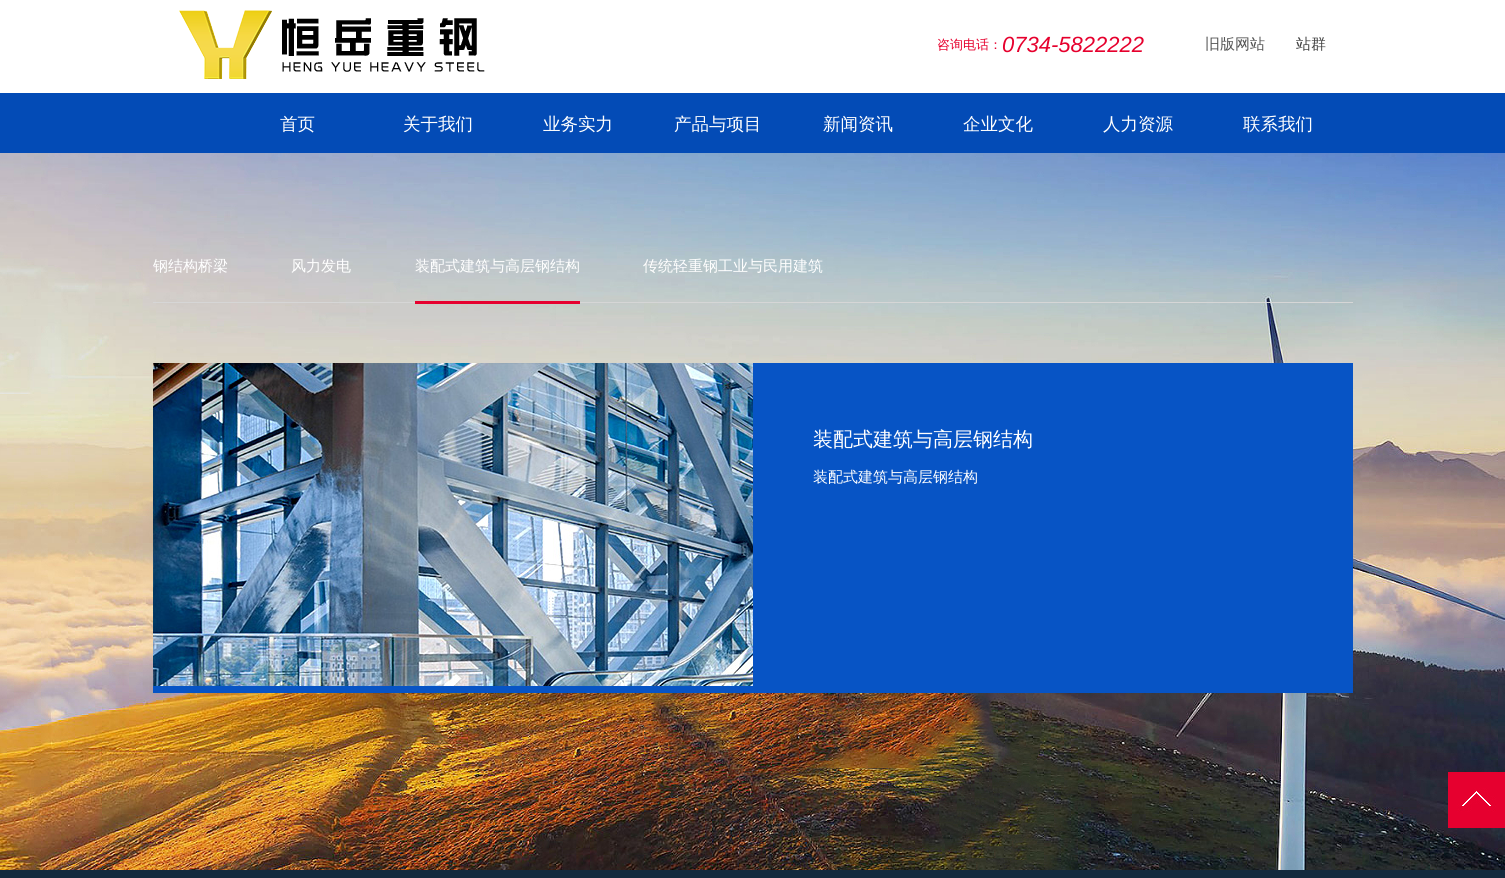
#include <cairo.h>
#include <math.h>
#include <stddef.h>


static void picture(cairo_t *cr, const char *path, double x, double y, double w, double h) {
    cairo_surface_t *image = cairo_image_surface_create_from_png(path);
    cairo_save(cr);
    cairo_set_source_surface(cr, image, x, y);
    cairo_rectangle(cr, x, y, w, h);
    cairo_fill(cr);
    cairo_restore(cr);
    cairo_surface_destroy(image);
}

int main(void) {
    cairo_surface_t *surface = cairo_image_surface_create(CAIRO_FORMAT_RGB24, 1505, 878);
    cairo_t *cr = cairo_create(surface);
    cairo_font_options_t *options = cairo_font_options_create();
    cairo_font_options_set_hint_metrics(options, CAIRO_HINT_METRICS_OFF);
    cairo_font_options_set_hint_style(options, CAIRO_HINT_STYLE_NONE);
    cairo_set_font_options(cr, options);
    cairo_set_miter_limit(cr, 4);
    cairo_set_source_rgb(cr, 1, 1, 1);
    cairo_paint(cr);
    picture(cr, "img1.png", 179, 10, 306, 69);
    cairo_select_font_face(cr, "WenQuanYi Zen Hei Medium", CAIRO_FONT_SLANT_NORMAL, CAIRO_FONT_WEIGHT_NORMAL);
    cairo_set_font_size(cr, 13);
    cairo_set_source_rgb(cr, 0.902, 0, 0.176);
    cairo_move_to(cr, 937, 49);
    cairo_show_text(cr, "咨询电话：");
    cairo_select_font_face(cr, "Liberation Sans", CAIRO_FONT_SLANT_ITALIC, CAIRO_FONT_WEIGHT_NORMAL);
    cairo_set_font_size(cr, 22);
    cairo_move_to(cr, 1002, 52);
    cairo_show_text(cr, "0734-5822222");
    cairo_select_font_face(cr, "WenQuanYi Zen Hei Medium", CAIRO_FONT_SLANT_NORMAL, CAIRO_FONT_WEIGHT_NORMAL);
    cairo_set_font_size(cr, 15);
    cairo_set_source_rgb(cr, 0.333, 0.333, 0.333);
    cairo_move_to(cr, 1205, 49);
    cairo_show_text(cr, "旧版网站");
    cairo_set_source_rgb(cr, 0.267, 0.267, 0.267);
    cairo_move_to(cr, 1296, 49);
    cairo_show_text(cr, "站群");
    cairo_set_source_rgb(cr, 0.012, 0.294, 0.714);
    cairo_rectangle(cr, 0, 93, 1505, 60);
    cairo_fill(cr);
    cairo_set_font_size(cr, 17.5);
    cairo_set_source_rgb(cr, 1, 1, 1);
    cairo_move_to(cr, 280, 130);
    cairo_show_text(cr, "首页");
    cairo_move_to(cr, 403, 130);
    cairo_show_text(cr, "关于我们");
    cairo_move_to(cr, 543, 130);
    cairo_show_text(cr, "业务实力");
    cairo_move_to(cr, 674, 130);
    cairo_show_text(cr, "产品与项目");
    cairo_move_to(cr, 823, 130);
    cairo_show_text(cr, "新闻资讯");
    cairo_move_to(cr, 963, 130);
    cairo_show_text(cr, "企业文化");
    cairo_move_to(cr, 1103, 130);
    cairo_show_text(cr, "人力资源");
    cairo_move_to(cr, 1243, 130);
    cairo_show_text(cr, "联系我们");
    picture(cr, "img2.png", 0, 153, 1505, 717);
    cairo_set_source_rgb(cr, 0.839, 0.839, 0.839);
    cairo_rectangle(cr, 153, 302, 1200, 1);
    cairo_fill(cr);
    cairo_set_font_size(cr, 15);
    cairo_set_source_rgb(cr, 1, 1, 1);
    cairo_move_to(cr, 153, 271);
    cairo_show_text(cr, "钢结构桥梁");
    cairo_move_to(cr, 291, 271);
    cairo_show_text(cr, "风力发电");
    cairo_move_to(cr, 415, 271);
    cairo_show_text(cr, "装配式建筑与高层钢结构");
    cairo_set_source_rgb(cr, 0.902, 0, 0.184);
    cairo_rectangle(cr, 415, 301, 165, 3);
    cairo_fill(cr);
    cairo_set_source_rgb(cr, 1, 1, 1);
    cairo_move_to(cr, 643, 271);
    cairo_show_text(cr, "传统轻重钢工业与民用建筑");
    cairo_set_source_rgb(cr, 0.031, 0.329, 0.773);
    cairo_rectangle(cr, 153, 363, 1200, 330);
    cairo_fill(cr);
    picture(cr, "img3.png", 153, 363, 600, 323);
    cairo_set_font_size(cr, 20);
    cairo_set_source_rgb(cr, 1, 1, 1);
    cairo_move_to(cr, 813, 446);
    cairo_show_text(cr, "装配式建筑与高层钢结构");
    cairo_set_font_size(cr, 15);
    cairo_move_to(cr, 813, 482);
    cairo_show_text(cr, "装配式建筑与高层钢结构");
    picture(cr, "img4.png", 1448, 772, 57, 56);
    cairo_set_source_rgb(cr, 0.075, 0.161, 0.239);
    cairo_rectangle(cr, 0, 870, 1505, 8);
    cairo_fill(cr);
    cairo_surface_write_to_png(surface, "page.png");
    cairo_font_options_destroy(options);
    cairo_destroy(cr);
    cairo_surface_destroy(surface);
    return 0;
}
